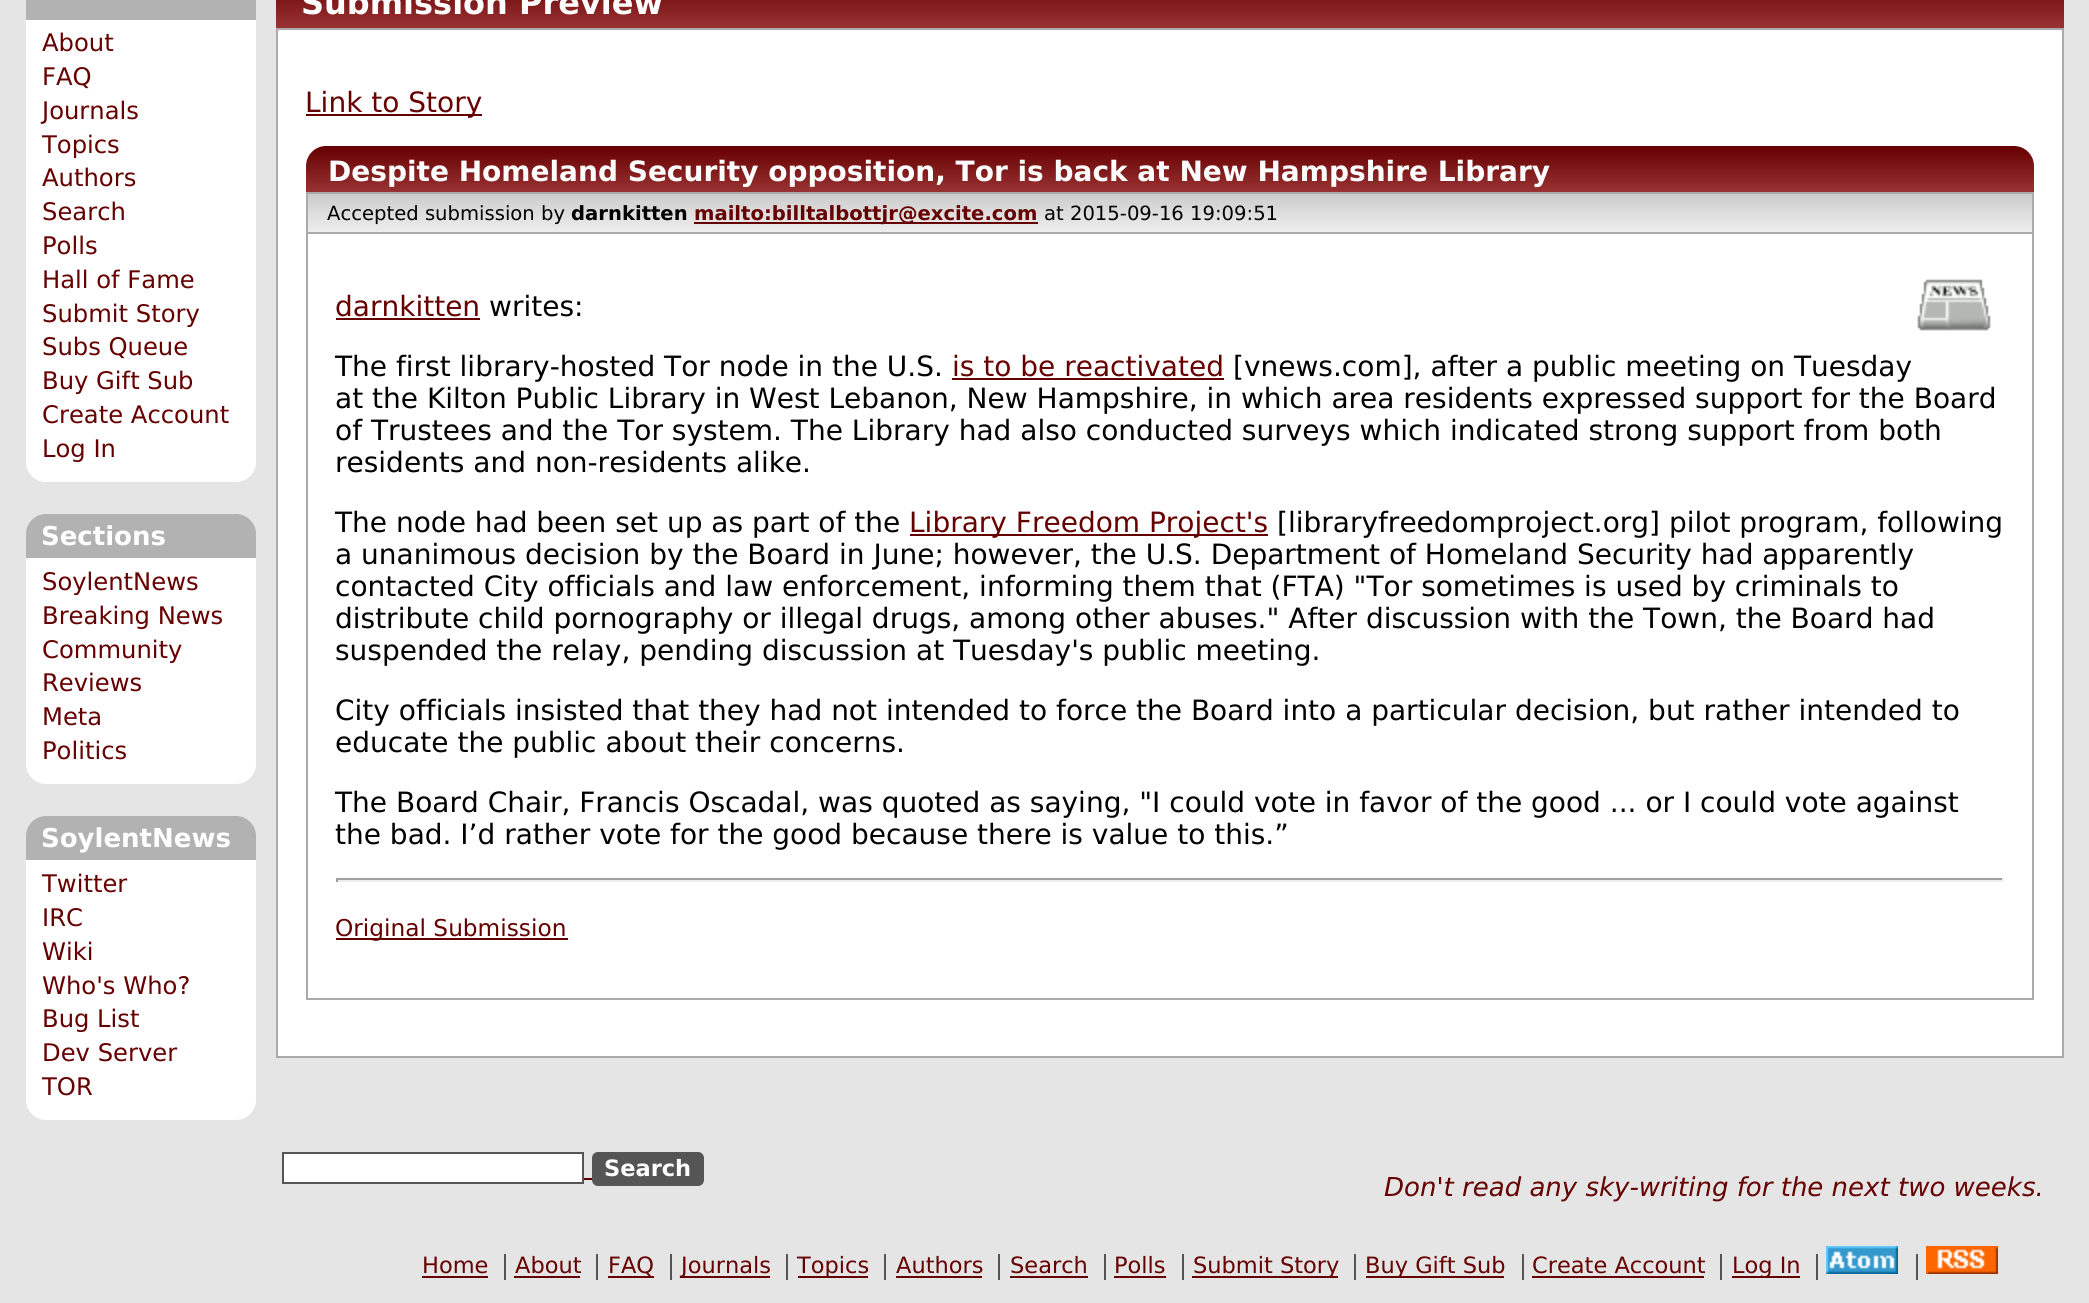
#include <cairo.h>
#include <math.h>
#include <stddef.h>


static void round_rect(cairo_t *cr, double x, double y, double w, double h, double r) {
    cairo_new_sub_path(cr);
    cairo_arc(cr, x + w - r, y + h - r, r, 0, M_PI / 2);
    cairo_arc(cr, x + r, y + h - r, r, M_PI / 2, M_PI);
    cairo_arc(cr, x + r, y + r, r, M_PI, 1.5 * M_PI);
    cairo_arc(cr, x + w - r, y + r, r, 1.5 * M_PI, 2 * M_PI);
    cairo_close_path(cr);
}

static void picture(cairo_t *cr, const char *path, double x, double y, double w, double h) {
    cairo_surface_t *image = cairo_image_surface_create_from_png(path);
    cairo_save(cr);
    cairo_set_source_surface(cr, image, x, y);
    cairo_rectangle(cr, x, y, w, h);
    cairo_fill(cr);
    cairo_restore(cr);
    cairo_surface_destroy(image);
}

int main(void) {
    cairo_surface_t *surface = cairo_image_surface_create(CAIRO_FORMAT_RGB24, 2089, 1303);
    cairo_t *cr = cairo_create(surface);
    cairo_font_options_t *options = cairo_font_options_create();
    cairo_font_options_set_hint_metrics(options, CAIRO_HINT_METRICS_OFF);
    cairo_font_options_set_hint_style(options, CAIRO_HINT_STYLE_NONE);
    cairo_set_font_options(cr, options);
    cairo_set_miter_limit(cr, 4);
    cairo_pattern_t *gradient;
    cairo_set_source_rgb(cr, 0.898, 0.898, 0.898);
    cairo_paint(cr);
    cairo_set_source_rgb(cr, 0.698, 0.698, 0.698);
    cairo_rectangle(cr, 26, 0, 230, 20);
    cairo_fill(cr);
    cairo_set_source_rgb(cr, 1, 1, 1);
    cairo_new_path(cr);
    cairo_move_to(cr, 26, 20);
    cairo_line_to(cr, 256, 20);
    cairo_line_to(cr, 256, 462);
    cairo_curve_to(cr, 256, 473, 247, 482, 236, 482);
    cairo_line_to(cr, 46, 482);
    cairo_curve_to(cr, 35, 482, 26, 473, 26, 462);
    cairo_close_path(cr);
    cairo_fill(cr);
    cairo_select_font_face(cr, "DejaVu Sans", CAIRO_FONT_SLANT_NORMAL, CAIRO_FONT_WEIGHT_NORMAL);
    cairo_set_font_size(cr, 24.25);
    cairo_set_source_rgb(cr, 0.4, 0, 0);
    cairo_move_to(cr, 42, 51);
    cairo_show_text(cr, "About");
    cairo_move_to(cr, 42, 85);
    cairo_show_text(cr, "FAQ");
    cairo_move_to(cr, 42, 119);
    cairo_show_text(cr, "Journals");
    cairo_move_to(cr, 42, 153);
    cairo_show_text(cr, "Topics");
    cairo_move_to(cr, 42, 186);
    cairo_show_text(cr, "Authors");
    cairo_move_to(cr, 42, 220);
    cairo_show_text(cr, "Search");
    cairo_move_to(cr, 42, 254);
    cairo_show_text(cr, "Polls");
    cairo_move_to(cr, 42, 288);
    cairo_show_text(cr, "Hall of Fame");
    cairo_move_to(cr, 42, 322);
    cairo_show_text(cr, "Submit Story");
    cairo_move_to(cr, 42, 355);
    cairo_show_text(cr, "Subs Queue");
    cairo_move_to(cr, 42, 389);
    cairo_show_text(cr, "Buy Gift Sub");
    cairo_move_to(cr, 42, 423);
    cairo_show_text(cr, "Create Account");
    cairo_move_to(cr, 42, 457);
    cairo_show_text(cr, "Log In");
    cairo_set_source_rgb(cr, 0.698, 0.698, 0.698);
    cairo_new_path(cr);
    cairo_move_to(cr, 46, 514);
    cairo_line_to(cr, 236, 514);
    cairo_curve_to(cr, 247, 514, 256, 523, 256, 534);
    cairo_line_to(cr, 256, 558);
    cairo_line_to(cr, 26, 558);
    cairo_line_to(cr, 26, 534);
    cairo_curve_to(cr, 26, 523, 35, 514, 46, 514);
    cairo_close_path(cr);
    cairo_fill(cr);
    cairo_select_font_face(cr, "DejaVu Sans", CAIRO_FONT_SLANT_NORMAL, CAIRO_FONT_WEIGHT_BOLD);
    cairo_set_font_size(cr, 26);
    cairo_set_source_rgb(cr, 1, 1, 1);
    cairo_move_to(cr, 41, 545);
    cairo_show_text(cr, "Sections");
    cairo_new_path(cr);
    cairo_move_to(cr, 26, 558);
    cairo_line_to(cr, 256, 558);
    cairo_line_to(cr, 256, 764);
    cairo_curve_to(cr, 256, 775, 247, 784, 236, 784);
    cairo_line_to(cr, 46, 784);
    cairo_curve_to(cr, 35, 784, 26, 775, 26, 764);
    cairo_close_path(cr);
    cairo_fill(cr);
    cairo_select_font_face(cr, "DejaVu Sans", CAIRO_FONT_SLANT_NORMAL, CAIRO_FONT_WEIGHT_NORMAL);
    cairo_set_font_size(cr, 24.25);
    cairo_set_source_rgb(cr, 0.4, 0, 0);
    cairo_move_to(cr, 42, 590);
    cairo_show_text(cr, "SoylentNews");
    cairo_move_to(cr, 42, 624);
    cairo_show_text(cr, "Breaking News");
    cairo_move_to(cr, 42, 658);
    cairo_show_text(cr, "Community");
    cairo_move_to(cr, 42, 691);
    cairo_show_text(cr, "Reviews");
    cairo_move_to(cr, 42, 725);
    cairo_show_text(cr, "Meta");
    cairo_move_to(cr, 42, 759);
    cairo_show_text(cr, "Politics");
    cairo_set_source_rgb(cr, 0.698, 0.698, 0.698);
    cairo_new_path(cr);
    cairo_move_to(cr, 46, 816);
    cairo_line_to(cr, 236, 816);
    cairo_curve_to(cr, 247, 816, 256, 825, 256, 836);
    cairo_line_to(cr, 256, 860);
    cairo_line_to(cr, 26, 860);
    cairo_line_to(cr, 26, 836);
    cairo_curve_to(cr, 26, 825, 35, 816, 46, 816);
    cairo_close_path(cr);
    cairo_fill(cr);
    cairo_select_font_face(cr, "DejaVu Sans", CAIRO_FONT_SLANT_NORMAL, CAIRO_FONT_WEIGHT_BOLD);
    cairo_set_font_size(cr, 26);
    cairo_set_source_rgb(cr, 1, 1, 1);
    cairo_move_to(cr, 41, 847);
    cairo_show_text(cr, "SoylentNews");
    cairo_new_path(cr);
    cairo_move_to(cr, 26, 860);
    cairo_line_to(cr, 256, 860);
    cairo_line_to(cr, 256, 1100);
    cairo_curve_to(cr, 256, 1111, 247, 1120, 236, 1120);
    cairo_line_to(cr, 46, 1120);
    cairo_curve_to(cr, 35, 1120, 26, 1111, 26, 1100);
    cairo_close_path(cr);
    cairo_fill(cr);
    cairo_select_font_face(cr, "DejaVu Sans", CAIRO_FONT_SLANT_NORMAL, CAIRO_FONT_WEIGHT_NORMAL);
    cairo_set_font_size(cr, 24.25);
    cairo_set_source_rgb(cr, 0.4, 0, 0);
    cairo_move_to(cr, 42, 892);
    cairo_show_text(cr, "Twitter");
    cairo_move_to(cr, 42, 926);
    cairo_show_text(cr, "IRC");
    cairo_move_to(cr, 42, 960);
    cairo_show_text(cr, "Wiki");
    cairo_move_to(cr, 42, 994);
    cairo_show_text(cr, "Who's Who?");
    cairo_move_to(cr, 42, 1027);
    cairo_show_text(cr, "Bug List");
    cairo_move_to(cr, 42, 1061);
    cairo_show_text(cr, "Dev Server");
    cairo_move_to(cr, 42, 1095);
    cairo_show_text(cr, "TOR");
    gradient = cairo_pattern_create_linear(1170, -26, 1170, 28);
    cairo_pattern_add_color_stop_rgba(gradient, 0, 0.4, 0, 0, 1);
    cairo_pattern_add_color_stop_rgba(gradient, 1, 0.6, 0.2, 0.2, 1);
    cairo_set_source(cr, gradient);
    cairo_pattern_destroy(gradient);
    cairo_rectangle(cr, 276, 0, 1788, 28);
    cairo_fill(cr);
    cairo_select_font_face(cr, "DejaVu Sans", CAIRO_FONT_SLANT_NORMAL, CAIRO_FONT_WEIGHT_BOLD);
    cairo_set_font_size(cr, 32);
    cairo_set_source_rgb(cr, 1, 1, 1);
    cairo_move_to(cr, 301, 14);
    cairo_show_text(cr, "Submission Preview");
    cairo_rectangle(cr, 277, 29, 1786, 1028);
    cairo_fill_preserve(cr);
    cairo_set_source_rgb(cr, 0.667, 0.667, 0.667);
    cairo_stroke(cr);
    cairo_set_source_rgb(cr, 0.4, 0, 0);
    cairo_rectangle(cr, 306, 114, 176, 2);
    cairo_fill(cr);
    cairo_select_font_face(cr, "DejaVu Sans", CAIRO_FONT_SLANT_NORMAL, CAIRO_FONT_WEIGHT_NORMAL);
    cairo_set_font_size(cr, 28);
    cairo_move_to(cr, 305, 112);
    cairo_show_text(cr, "Link to Story");
    gradient = cairo_pattern_create_linear(1170, 146, 1170, 192);
    cairo_pattern_add_color_stop_rgba(gradient, 0, 0.4, 0, 0, 1);
    cairo_pattern_add_color_stop_rgba(gradient, 1, 0.6, 0.2, 0.2, 1);
    cairo_set_source(cr, gradient);
    cairo_pattern_destroy(gradient);
    cairo_new_path(cr);
    cairo_move_to(cr, 326, 146);
    cairo_line_to(cr, 2014, 146);
    cairo_curve_to(cr, 2025, 146, 2034, 155, 2034, 166);
    cairo_line_to(cr, 2034, 192);
    cairo_line_to(cr, 306, 192);
    cairo_line_to(cr, 306, 166);
    cairo_curve_to(cr, 306, 155, 315, 146, 326, 146);
    cairo_close_path(cr);
    cairo_fill(cr);
    cairo_select_font_face(cr, "DejaVu Sans", CAIRO_FONT_SLANT_NORMAL, CAIRO_FONT_WEIGHT_BOLD);
    cairo_set_source_rgb(cr, 1, 1, 1);
    cairo_move_to(cr, 328, 181);
    cairo_show_text(cr, "Despite Homeland Security opposition, Tor is back at New Hampshire Library");
    gradient = cairo_pattern_create_linear(1170, 194, 1170, 232);
    cairo_pattern_add_color_stop_rgba(gradient, 0, 0.8, 0.8, 0.8, 1);
    cairo_pattern_add_color_stop_rgba(gradient, 1, 0.933, 0.933, 0.933, 1);
    cairo_set_source(cr, gradient);
    cairo_pattern_destroy(gradient);
    cairo_rectangle(cr, 308, 194, 1724, 38);
    cairo_fill(cr);
    cairo_rectangle(cr, 307, 193, 1726, 40);
    cairo_set_source_rgb(cr, 0.667, 0.667, 0.667);
    cairo_stroke(cr);
    cairo_select_font_face(cr, "DejaVu Sans", CAIRO_FONT_SLANT_NORMAL, CAIRO_FONT_WEIGHT_NORMAL);
    cairo_set_font_size(cr, 19.6);
    cairo_set_source_rgb(cr, 0, 0, 0);
    cairo_move_to(cr, 327, 220);
    cairo_show_text(cr, "Accepted submission by");
    cairo_select_font_face(cr, "DejaVu Sans", CAIRO_FONT_SLANT_NORMAL, CAIRO_FONT_WEIGHT_BOLD);
    cairo_move_to(cr, 571, 220);
    cairo_show_text(cr, "darnkitten");
    cairo_set_source_rgb(cr, 0.4, 0, 0);
    cairo_rectangle(cr, 694, 222, 344, 2);
    cairo_fill(cr);
    cairo_move_to(cr, 694, 220);
    cairo_show_text(cr, "mailto:billtalbottjr@excite.com");
    cairo_select_font_face(cr, "DejaVu Sans", CAIRO_FONT_SLANT_NORMAL, CAIRO_FONT_WEIGHT_NORMAL);
    cairo_set_source_rgb(cr, 0, 0, 0);
    cairo_move_to(cr, 1044, 220);
    cairo_show_text(cr, "at 2015-09-16 19:09:51");
    cairo_set_source_rgb(cr, 0.667, 0.667, 0.667);
    cairo_rectangle(cr, 2032, 234, 2, 766);
    cairo_fill(cr);
    cairo_rectangle(cr, 306, 998, 1728, 2);
    cairo_fill(cr);
    cairo_rectangle(cr, 306, 234, 2, 766);
    cairo_fill(cr);
    cairo_set_font_size(cr, 28);
    cairo_set_source_rgb(cr, 0.4, 0, 0);
    cairo_move_to(cr, 335, 316);
    cairo_show_text(cr, "darnkitten");
    cairo_rectangle(cr, 336, 318, 144, 2);
    cairo_fill(cr);
    cairo_set_source_rgb(cr, 0, 0, 0);
    cairo_move_to(cr, 489, 316);
    cairo_show_text(cr, "writes:");
    picture(cr, "img1.png", 1917, 279, 74, 52);
    cairo_move_to(cr, 335, 376);
    cairo_show_text(cr, "The first library-hosted Tor node in the U.S.");
    cairo_set_source_rgb(cr, 0.4, 0, 0);
    cairo_move_to(cr, 952, 376);
    cairo_show_text(cr, "is to be reactivated");
    cairo_rectangle(cr, 952, 378, 272, 2);
    cairo_fill(cr);
    cairo_set_source_rgb(cr, 0, 0, 0);
    cairo_move_to(cr, 1233, 376);
    cairo_show_text(cr, "[vnews.com], after a public meeting on Tuesday");
    cairo_move_to(cr, 335, 408);
    cairo_show_text(cr, "at the Kilton Public Library in West Lebanon, New Hampshire, in which area residents expressed support for the Board");
    cairo_move_to(cr, 335, 440);
    cairo_show_text(cr, "of Trustees and the Tor system. The Library had also conducted surveys which indicated strong support from both");
    cairo_move_to(cr, 335, 472);
    cairo_show_text(cr, "residents and non-residents alike.");
    cairo_move_to(cr, 335, 532);
    cairo_show_text(cr, "The node had been set up as part of the");
    cairo_set_source_rgb(cr, 0.4, 0, 0);
    cairo_rectangle(cr, 910, 534, 358, 2);
    cairo_fill(cr);
    cairo_move_to(cr, 909, 532);
    cairo_show_text(cr, "Library Freedom Project's");
    cairo_set_source_rgb(cr, 0, 0, 0);
    cairo_move_to(cr, 1277, 532);
    cairo_show_text(cr, "[libraryfreedomproject.org] pilot program, following");
    cairo_move_to(cr, 335, 564);
    cairo_show_text(cr, "a unanimous decision by the Board in June; however, the U.S. Department of Homeland Security had apparently");
    cairo_move_to(cr, 335, 596);
    cairo_show_text(cr, "contacted City officials and law enforcement, informing them that (FTA) \"Tor sometimes is used by criminals to");
    cairo_move_to(cr, 335, 628);
    cairo_show_text(cr, "distribute child pornography or illegal drugs, among other abuses.\" After discussion with the Town, the Board had");
    cairo_move_to(cr, 335, 660);
    cairo_show_text(cr, "suspended the relay, pending discussion at Tuesday's public meeting.");
    cairo_move_to(cr, 335, 720);
    cairo_show_text(cr, "City officials insisted that they had not intended to force the Board into a particular decision, but rather intended to");
    cairo_move_to(cr, 335, 752);
    cairo_show_text(cr, "educate the public about their concerns.");
    cairo_move_to(cr, 335, 812);
    cairo_show_text(cr, "The Board Chair, Francis Oscadal, was quoted as saying, \"I could vote in favor of the good ... or I could vote against");
    cairo_move_to(cr, 335, 844);
    cairo_show_text(cr, "the bad. I’d rather vote for the good because there is value to this.”");
    cairo_set_source_rgb(cr, 0.624, 0.624, 0.624);
    cairo_rectangle(cr, 336, 878, 1668, 2);
    cairo_fill(cr);
    cairo_set_source_rgb(cr, 0.933, 0.933, 0.933);
    cairo_rectangle(cr, 2002, 878, 2, 4);
    cairo_fill(cr);
    cairo_rectangle(cr, 336, 880, 1668, 2);
    cairo_fill(cr);
    cairo_set_source_rgb(cr, 0.624, 0.624, 0.624);
    cairo_rectangle(cr, 336, 878, 2, 4);
    cairo_fill(cr);
    cairo_set_source_rgb(cr, 0.4, 0, 0);
    cairo_rectangle(cr, 336, 938, 232, 2);
    cairo_fill(cr);
    cairo_set_font_size(cr, 23.25);
    cairo_move_to(cr, 335, 936);
    cairo_show_text(cr, "Original Submission");
    cairo_set_source_rgb(cr, 1, 1, 1);
    cairo_rectangle(cr, 283, 1153, 300, 30);
    cairo_fill_preserve(cr);
    cairo_set_source_rgb(cr, 0.333, 0.333, 0.333);
    cairo_stroke(cr);
    round_rect(cr, 592, 1152, 112, 34, 6);
    cairo_fill(cr);
    cairo_select_font_face(cr, "DejaVu Sans", CAIRO_FONT_SLANT_NORMAL, CAIRO_FONT_WEIGHT_BOLD);
    cairo_set_font_size(cr, 22.5);
    cairo_set_source_rgb(cr, 1, 1, 1);
    cairo_move_to(cr, 604, 1176);
    cairo_show_text(cr, "Search");
    cairo_set_source_rgb(cr, 0.4, 0, 0);
    cairo_rectangle(cr, 584, 1178, 8, 2);
    cairo_fill(cr);
    cairo_select_font_face(cr, "DejaVu Sans", CAIRO_FONT_SLANT_ITALIC, CAIRO_FONT_WEIGHT_NORMAL);
    cairo_set_font_size(cr, 26);
    cairo_move_to(cr, 1384, 1196);
    cairo_show_text(cr, "Don't read any sky-writing for the next two weeks.");
    cairo_select_font_face(cr, "DejaVu Sans", CAIRO_FONT_SLANT_NORMAL, CAIRO_FONT_WEIGHT_NORMAL);
    cairo_set_font_size(cr, 22.5);
    cairo_move_to(cr, 422, 1273);
    cairo_show_text(cr, "Home");
    cairo_rectangle(cr, 422, 1276, 66, 2);
    cairo_fill(cr);
    cairo_move_to(cr, 515, 1273);
    cairo_show_text(cr, "About");
    cairo_set_source_rgb(cr, 0.333, 0.333, 0.333);
    cairo_rectangle(cr, 504, 1254, 2, 26);
    cairo_fill(cr);
    cairo_set_source_rgb(cr, 0.4, 0, 0);
    cairo_rectangle(cr, 514, 1276, 66, 2);
    cairo_fill(cr);
    cairo_move_to(cr, 608, 1273);
    cairo_show_text(cr, "FAQ");
    cairo_set_source_rgb(cr, 0.333, 0.333, 0.333);
    cairo_rectangle(cr, 596, 1254, 2, 26);
    cairo_fill(cr);
    cairo_set_source_rgb(cr, 0.4, 0, 0);
    cairo_rectangle(cr, 608, 1276, 46, 2);
    cairo_fill(cr);
    cairo_rectangle(cr, 680, 1276, 90, 2);
    cairo_fill(cr);
    cairo_move_to(cr, 681, 1273);
    cairo_show_text(cr, "Journals");
    cairo_set_source_rgb(cr, 0.333, 0.333, 0.333);
    cairo_rectangle(cr, 670, 1254, 2, 26);
    cairo_fill(cr);
    cairo_set_source_rgb(cr, 0.4, 0, 0);
    cairo_rectangle(cr, 798, 1276, 70, 2);
    cairo_fill(cr);
    cairo_move_to(cr, 797, 1273);
    cairo_show_text(cr, "Topics");
    cairo_set_source_rgb(cr, 0.333, 0.333, 0.333);
    cairo_rectangle(cr, 786, 1254, 2, 26);
    cairo_fill(cr);
    cairo_set_source_rgb(cr, 0.4, 0, 0);
    cairo_move_to(cr, 896, 1273);
    cairo_show_text(cr, "Authors");
    cairo_set_source_rgb(cr, 0.333, 0.333, 0.333);
    cairo_rectangle(cr, 884, 1254, 2, 26);
    cairo_fill(cr);
    cairo_set_source_rgb(cr, 0.4, 0, 0);
    cairo_rectangle(cr, 896, 1276, 86, 2);
    cairo_fill(cr);
    cairo_move_to(cr, 1010, 1273);
    cairo_show_text(cr, "Search");
    cairo_set_source_rgb(cr, 0.333, 0.333, 0.333);
    cairo_rectangle(cr, 998, 1254, 2, 26);
    cairo_fill(cr);
    cairo_set_source_rgb(cr, 0.4, 0, 0);
    cairo_rectangle(cr, 1010, 1276, 78, 2);
    cairo_fill(cr);
    cairo_move_to(cr, 1114, 1273);
    cairo_show_text(cr, "Polls");
    cairo_set_source_rgb(cr, 0.333, 0.333, 0.333);
    cairo_rectangle(cr, 1104, 1254, 2, 26);
    cairo_fill(cr);
    cairo_set_source_rgb(cr, 0.4, 0, 0);
    cairo_rectangle(cr, 1114, 1276, 52, 2);
    cairo_fill(cr);
    cairo_rectangle(cr, 1192, 1276, 146, 2);
    cairo_fill(cr);
    cairo_move_to(cr, 1193, 1273);
    cairo_show_text(cr, "Submit Story");
    cairo_set_source_rgb(cr, 0.333, 0.333, 0.333);
    cairo_rectangle(cr, 1182, 1254, 2, 26);
    cairo_fill(cr);
    cairo_set_source_rgb(cr, 0.4, 0, 0);
    cairo_rectangle(cr, 1366, 1276, 138, 2);
    cairo_fill(cr);
    cairo_move_to(cr, 1365, 1273);
    cairo_show_text(cr, "Buy Gift Sub");
    cairo_set_source_rgb(cr, 0.333, 0.333, 0.333);
    cairo_rectangle(cr, 1354, 1254, 2, 26);
    cairo_fill(cr);
    cairo_set_source_rgb(cr, 0.4, 0, 0);
    cairo_move_to(cr, 1532, 1273);
    cairo_show_text(cr, "Create Account");
    cairo_set_source_rgb(cr, 0.333, 0.333, 0.333);
    cairo_rectangle(cr, 1522, 1254, 2, 26);
    cairo_fill(cr);
    cairo_set_source_rgb(cr, 0.4, 0, 0);
    cairo_rectangle(cr, 1532, 1276, 172, 2);
    cairo_fill(cr);
    cairo_rectangle(cr, 1732, 1276, 68, 2);
    cairo_fill(cr);
    cairo_move_to(cr, 1732, 1273);
    cairo_show_text(cr, "Log In");
    cairo_set_source_rgb(cr, 0.333, 0.333, 0.333);
    cairo_rectangle(cr, 1720, 1254, 2, 26);
    cairo_fill(cr);
    cairo_rectangle(cr, 1816, 1254, 2, 26);
    cairo_fill(cr);
    picture(cr, "img2.png", 1826, 1246, 72, 28);
    cairo_rectangle(cr, 1916, 1254, 2, 26);
    cairo_fill(cr);
    picture(cr, "img3.png", 1926, 1246, 72, 28);
    cairo_surface_write_to_png(surface, "page.png");
    cairo_font_options_destroy(options);
    cairo_destroy(cr);
    cairo_surface_destroy(surface);
    return 0;
}
